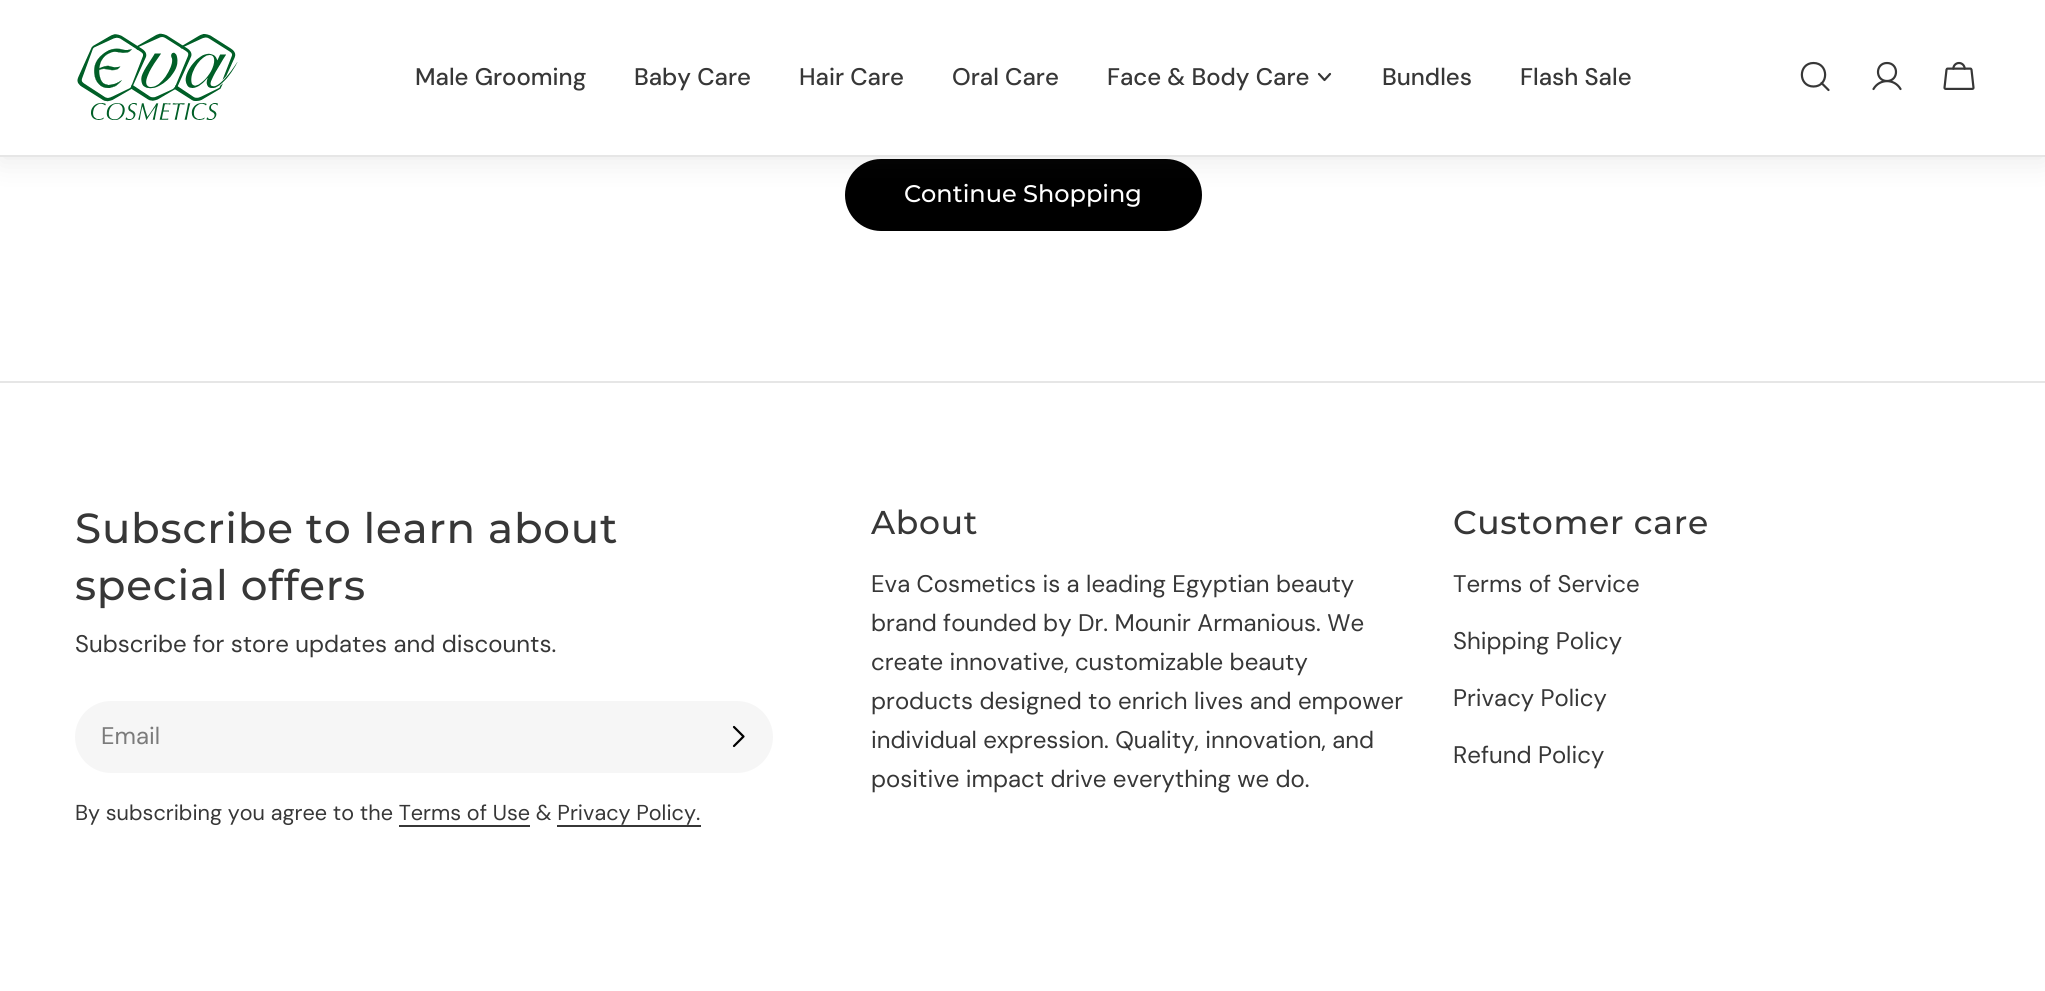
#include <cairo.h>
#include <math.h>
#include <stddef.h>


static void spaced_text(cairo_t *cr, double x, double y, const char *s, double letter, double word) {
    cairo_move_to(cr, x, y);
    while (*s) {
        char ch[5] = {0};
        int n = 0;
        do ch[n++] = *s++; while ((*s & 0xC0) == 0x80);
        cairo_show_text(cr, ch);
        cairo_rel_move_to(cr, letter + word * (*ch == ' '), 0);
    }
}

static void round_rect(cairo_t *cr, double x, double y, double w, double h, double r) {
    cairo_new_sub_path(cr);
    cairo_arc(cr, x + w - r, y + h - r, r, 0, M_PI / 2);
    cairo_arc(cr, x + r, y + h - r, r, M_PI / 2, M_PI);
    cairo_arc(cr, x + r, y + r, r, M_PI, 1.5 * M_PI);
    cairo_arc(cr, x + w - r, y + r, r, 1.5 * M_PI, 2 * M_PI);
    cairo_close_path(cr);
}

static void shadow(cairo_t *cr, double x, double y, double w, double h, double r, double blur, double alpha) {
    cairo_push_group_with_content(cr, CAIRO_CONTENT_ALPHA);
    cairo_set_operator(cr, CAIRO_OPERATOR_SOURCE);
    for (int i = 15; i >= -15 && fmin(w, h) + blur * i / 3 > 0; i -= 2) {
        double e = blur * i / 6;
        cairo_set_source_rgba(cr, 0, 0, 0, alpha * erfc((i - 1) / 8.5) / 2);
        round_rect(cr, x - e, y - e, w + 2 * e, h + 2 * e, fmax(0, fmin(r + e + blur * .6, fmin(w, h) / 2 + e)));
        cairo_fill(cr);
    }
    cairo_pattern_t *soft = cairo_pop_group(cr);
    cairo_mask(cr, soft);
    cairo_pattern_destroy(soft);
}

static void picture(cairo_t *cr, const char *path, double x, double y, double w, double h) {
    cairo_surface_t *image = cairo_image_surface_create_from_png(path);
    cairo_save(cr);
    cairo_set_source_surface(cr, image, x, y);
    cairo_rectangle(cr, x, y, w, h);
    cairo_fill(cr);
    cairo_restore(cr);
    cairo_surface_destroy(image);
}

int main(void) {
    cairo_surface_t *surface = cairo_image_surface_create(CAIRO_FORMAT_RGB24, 2045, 991);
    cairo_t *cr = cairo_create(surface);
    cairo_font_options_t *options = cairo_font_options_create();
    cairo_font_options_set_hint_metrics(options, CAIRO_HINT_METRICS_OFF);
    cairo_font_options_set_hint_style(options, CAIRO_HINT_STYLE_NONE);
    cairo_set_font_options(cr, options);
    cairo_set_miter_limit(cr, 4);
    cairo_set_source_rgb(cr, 1, 1, 1);
    cairo_paint(cr);
    cairo_set_source_rgb(cr, 0, 0, 0);
    round_rect(cr, 845, 159, 357, 72, 36);
    cairo_fill(cr);
    cairo_set_source_rgb(cr, 0.216, 0.216, 0.216);
    shadow(cr, 0, 6, 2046, 156, 0, 13.5, 0.1);
    cairo_set_source_rgb(cr, 0.902, 0.902, 0.902);
    cairo_rectangle(cr, 0, 155, 2045, 2);
    cairo_fill(cr);
    cairo_set_source_rgb(cr, 1, 1, 1);
    cairo_rectangle(cr, 0, 0, 2045, 155);
    cairo_fill(cr);
    picture(cr, "img1.png", 77, 33, 161, 87);
    cairo_select_font_face(cr, "DM Sans Medium", CAIRO_FONT_SLANT_NORMAL, CAIRO_FONT_WEIGHT_NORMAL);
    cairo_set_font_size(cr, 24);
    cairo_set_source_rgb(cr, 0.216, 0.216, 0.216);
    cairo_move_to(cr, 415, 85);
    cairo_show_text(cr, "Male Grooming");
    cairo_move_to(cr, 634, 85);
    cairo_show_text(cr, "Baby Care");
    cairo_move_to(cr, 799, 85);
    cairo_show_text(cr, "Hair Care");
    cairo_move_to(cr, 952, 85);
    cairo_show_text(cr, "Oral Care");
    cairo_move_to(cr, 1107, 85);
    cairo_show_text(cr, "Face & Body Care");
    cairo_new_path(cr);
    cairo_move_to(cr, 1330, 74);
    cairo_line_to(cr, 1324.5, 80);
    cairo_line_to(cr, 1319, 74);
    cairo_set_line_width(cr, 2.2);
    cairo_set_line_cap(cr, CAIRO_LINE_CAP_ROUND);
    cairo_set_line_join(cr, CAIRO_LINE_JOIN_ROUND);
    cairo_stroke(cr);
    cairo_move_to(cr, 1382, 85);
    cairo_show_text(cr, "Bundles");
    cairo_move_to(cr, 1520, 85);
    cairo_show_text(cr, "Flash Sale");
    cairo_new_path(cr);
    cairo_move_to(cr, 1813.5, 86.5);
    cairo_curve_to(cr, 1829, 86.5, 1829, 63, 1813.5, 63);
    cairo_curve_to(cr, 1798, 63, 1798, 86.5, 1813.5, 86.5);
    cairo_close_path(cr);
    cairo_move_to(cr, 1821.5, 83);
    cairo_line_to(cr, 1828.5, 90);
    cairo_stroke(cr);
    cairo_new_path(cr);
    cairo_move_to(cr, 1887, 81);
    cairo_curve_to(cr, 1899, 81, 1899, 63, 1887, 63);
    cairo_curve_to(cr, 1875, 63, 1875, 81, 1887, 81);
    cairo_close_path(cr);
    cairo_move_to(cr, 1873.5, 89);
    cairo_curve_to(cr, 1879.5, 78.5, 1894.5, 78.5, 1900.5, 89);
    cairo_stroke(cr);
    picture(cr, "img2.png", 1943, 61, 32, 29);
    cairo_select_font_face(cr, "Montserrat Medium", CAIRO_FONT_SLANT_NORMAL, CAIRO_FONT_WEIGHT_NORMAL);
    cairo_set_source_rgb(cr, 1, 1, 1);
    cairo_move_to(cr, 904, 202);
    cairo_show_text(cr, "Continue Shopping");
    cairo_set_source_rgb(cr, 0.902, 0.902, 0.902);
    cairo_rectangle(cr, 0, 381, 2045, 2);
    cairo_fill(cr);
    cairo_set_font_size(cr, 42);
    cairo_set_source_rgb(cr, 0.216, 0.216, 0.216);
    spaced_text(cr, 75, 543, "Subscribe to learn about", 0.8, 0);
    spaced_text(cr, 75, 600, "special offers", 0.8, 0);
    cairo_select_font_face(cr, "DM Sans", CAIRO_FONT_SLANT_NORMAL, CAIRO_FONT_WEIGHT_NORMAL);
    cairo_set_font_size(cr, 24);
    cairo_move_to(cr, 75, 652);
    cairo_show_text(cr, "Subscribe for store updates and discounts.");
    cairo_set_source_rgb(cr, 0.961, 0.961, 0.961);
    round_rect(cr, 76, 702, 696, 70, 35);
    cairo_fill_preserve(cr);
    cairo_set_line_width(cr, 2);
    cairo_set_line_cap(cr, CAIRO_LINE_CAP_BUTT);
    cairo_set_line_join(cr, CAIRO_LINE_JOIN_MITER);
    cairo_stroke(cr);
    cairo_set_source_rgb(cr, 0.482, 0.482, 0.482);
    cairo_move_to(cr, 101, 744);
    cairo_show_text(cr, "Email");
    cairo_new_path(cr);
    cairo_move_to(cr, 734, 727);
    cairo_line_to(cr, 743.5, 736.5);
    cairo_line_to(cr, 734, 746);
    cairo_set_source_rgb(cr, 0, 0, 0);
    cairo_set_line_width(cr, 2.2);
    cairo_set_line_cap(cr, CAIRO_LINE_CAP_ROUND);
    cairo_set_line_join(cr, CAIRO_LINE_JOIN_ROUND);
    cairo_stroke(cr);
    cairo_select_font_face(cr, "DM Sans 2", CAIRO_FONT_SLANT_NORMAL, CAIRO_FONT_WEIGHT_NORMAL);
    cairo_set_font_size(cr, 21.6);
    cairo_set_source_rgb(cr, 0.216, 0.216, 0.216);
    cairo_move_to(cr, 75, 820);
    cairo_show_text(cr, "By subscribing you agree to the Terms of Use & Privacy Policy.");
    cairo_rectangle(cr, 399, 825, 131, 2);
    cairo_fill(cr);
    cairo_rectangle(cr, 557, 825, 144, 2);
    cairo_fill(cr);
    cairo_select_font_face(cr, "Montserrat Medium", CAIRO_FONT_SLANT_NORMAL, CAIRO_FONT_WEIGHT_NORMAL);
    cairo_set_font_size(cr, 33);
    spaced_text(cr, 871, 534, "About", 0.7, 0);
    cairo_select_font_face(cr, "DM Sans", CAIRO_FONT_SLANT_NORMAL, CAIRO_FONT_WEIGHT_NORMAL);
    cairo_set_font_size(cr, 24);
    cairo_move_to(cr, 871, 592);
    cairo_show_text(cr, "Eva Cosmetics is a leading Egyptian beauty");
    cairo_move_to(cr, 871, 631);
    cairo_show_text(cr, "brand founded by Dr. Mounir Armanious. We");
    cairo_move_to(cr, 871, 670);
    cairo_show_text(cr, "create innovative, customizable beauty");
    cairo_move_to(cr, 871, 709);
    cairo_show_text(cr, "products designed to enrich lives and empower");
    cairo_move_to(cr, 871, 748);
    cairo_show_text(cr, "individual expression. Quality, innovation, and");
    cairo_move_to(cr, 871, 787);
    cairo_show_text(cr, "positive impact drive everything we do.");
    cairo_select_font_face(cr, "Montserrat Medium", CAIRO_FONT_SLANT_NORMAL, CAIRO_FONT_WEIGHT_NORMAL);
    cairo_set_font_size(cr, 33);
    spaced_text(cr, 1453, 534, "Customer care", 0.7, 0);
    cairo_select_font_face(cr, "DM Sans", CAIRO_FONT_SLANT_NORMAL, CAIRO_FONT_WEIGHT_NORMAL);
    cairo_set_font_size(cr, 24);
    cairo_move_to(cr, 1453, 592);
    cairo_show_text(cr, "Terms of Service");
    cairo_move_to(cr, 1453, 649);
    cairo_show_text(cr, "Shipping Policy");
    cairo_move_to(cr, 1453, 706);
    cairo_show_text(cr, "Privacy Policy");
    cairo_move_to(cr, 1453, 763);
    cairo_show_text(cr, "Refund Policy");
    cairo_surface_write_to_png(surface, "page.png");
    cairo_font_options_destroy(options);
    cairo_destroy(cr);
    cairo_surface_destroy(surface);
    return 0;
}
